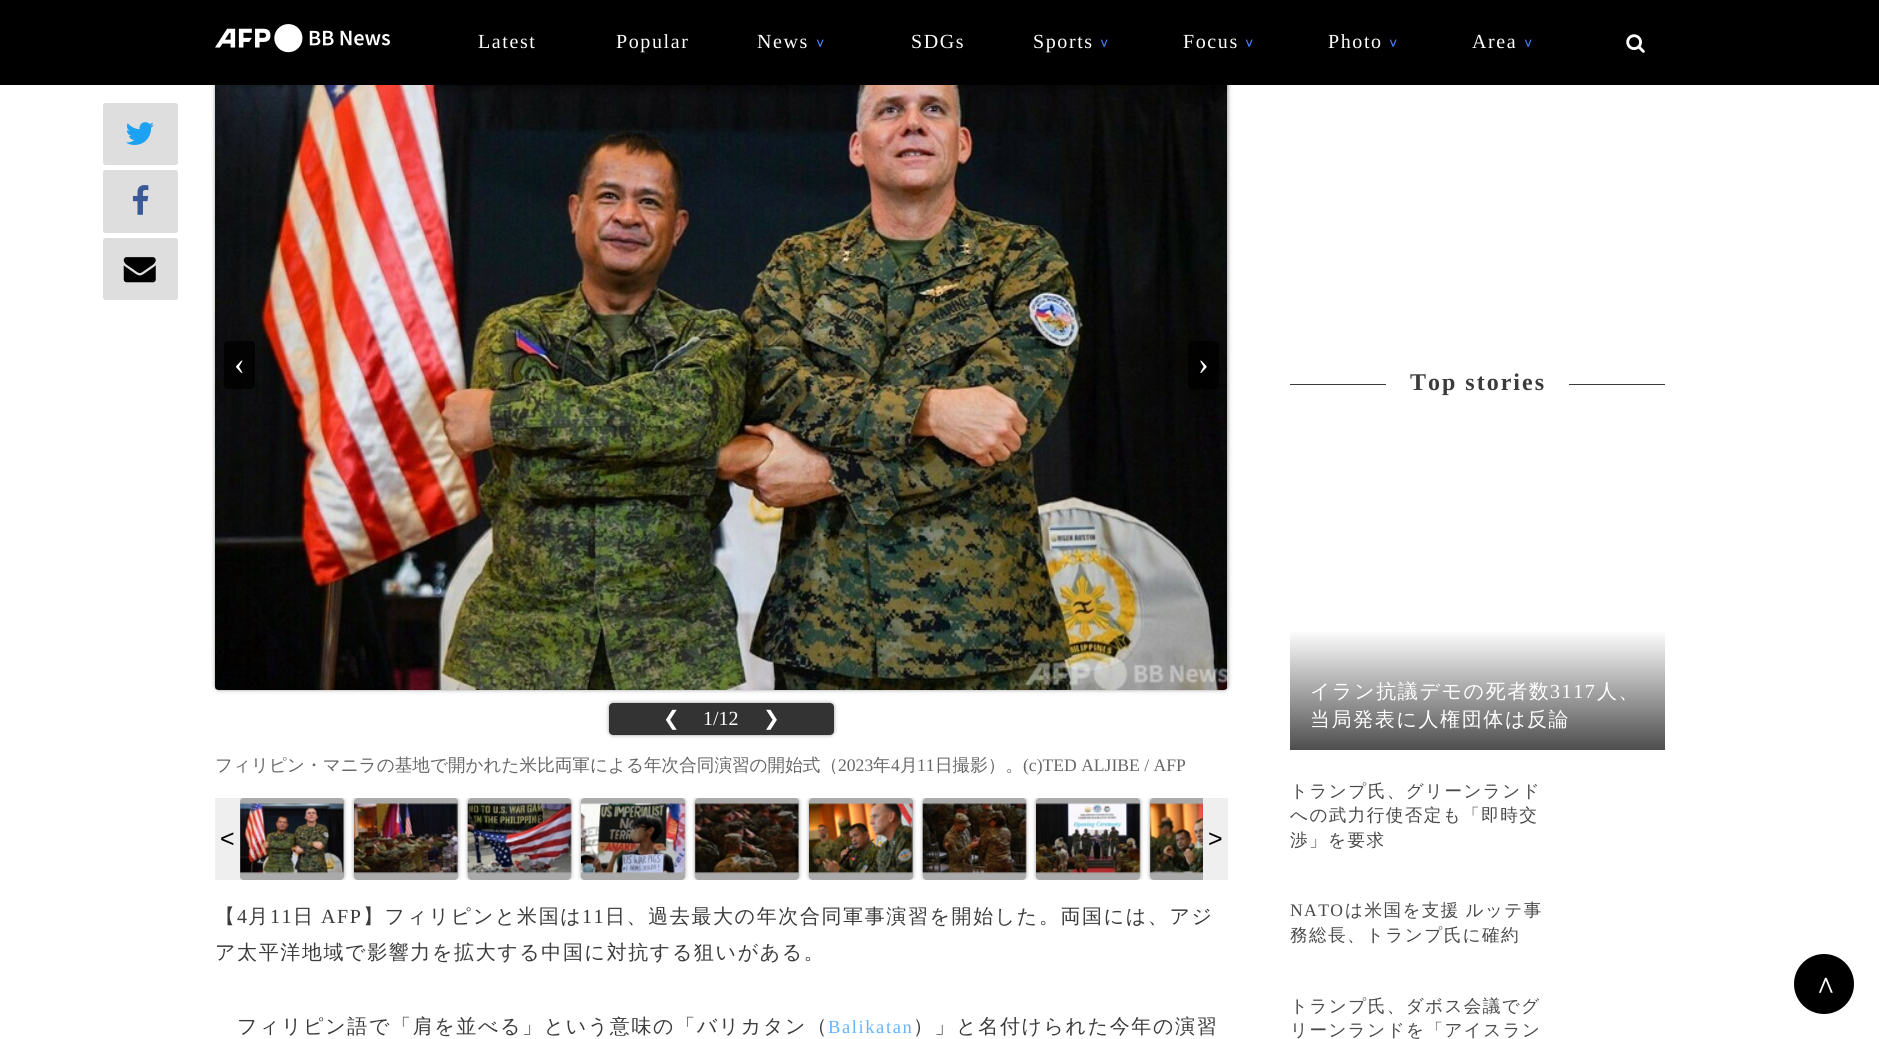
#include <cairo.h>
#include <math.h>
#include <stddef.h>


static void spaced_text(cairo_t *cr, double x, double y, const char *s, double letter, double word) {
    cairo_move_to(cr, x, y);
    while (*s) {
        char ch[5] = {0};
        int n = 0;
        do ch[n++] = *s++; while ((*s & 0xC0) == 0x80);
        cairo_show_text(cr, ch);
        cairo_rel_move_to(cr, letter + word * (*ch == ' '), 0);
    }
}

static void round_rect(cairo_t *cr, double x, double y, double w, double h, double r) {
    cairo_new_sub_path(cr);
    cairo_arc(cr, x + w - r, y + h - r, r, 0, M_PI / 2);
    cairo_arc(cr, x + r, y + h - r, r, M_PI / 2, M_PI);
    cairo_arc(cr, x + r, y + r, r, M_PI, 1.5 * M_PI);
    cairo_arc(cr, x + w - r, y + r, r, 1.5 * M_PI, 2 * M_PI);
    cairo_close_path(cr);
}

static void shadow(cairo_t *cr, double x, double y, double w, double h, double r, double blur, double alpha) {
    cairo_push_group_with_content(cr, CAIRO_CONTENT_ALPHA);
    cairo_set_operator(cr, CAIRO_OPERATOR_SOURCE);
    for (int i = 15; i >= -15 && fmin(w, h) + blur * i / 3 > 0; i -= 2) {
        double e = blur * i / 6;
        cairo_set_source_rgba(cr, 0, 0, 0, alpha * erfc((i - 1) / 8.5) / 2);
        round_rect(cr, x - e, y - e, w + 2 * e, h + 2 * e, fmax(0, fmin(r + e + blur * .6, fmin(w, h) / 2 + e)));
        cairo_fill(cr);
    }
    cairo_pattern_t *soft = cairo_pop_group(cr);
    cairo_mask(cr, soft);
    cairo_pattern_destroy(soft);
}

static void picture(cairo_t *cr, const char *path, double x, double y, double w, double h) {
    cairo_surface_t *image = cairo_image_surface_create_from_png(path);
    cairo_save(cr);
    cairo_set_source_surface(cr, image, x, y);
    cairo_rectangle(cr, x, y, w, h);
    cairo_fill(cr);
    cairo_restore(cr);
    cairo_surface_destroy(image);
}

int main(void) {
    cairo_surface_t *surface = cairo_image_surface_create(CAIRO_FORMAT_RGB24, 1879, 1039);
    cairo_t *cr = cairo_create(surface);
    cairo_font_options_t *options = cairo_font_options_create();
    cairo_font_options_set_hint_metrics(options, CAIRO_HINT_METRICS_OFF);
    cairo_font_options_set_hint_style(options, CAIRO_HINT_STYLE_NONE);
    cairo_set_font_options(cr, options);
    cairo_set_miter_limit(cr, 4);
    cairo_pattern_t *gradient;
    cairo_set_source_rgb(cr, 1, 1, 1);
    cairo_paint(cr);
    cairo_set_source_rgb(cr, 0, 0, 0);
    shadow(cr, 215, 15, 1013, 675, 4, 2, 0.4);
    cairo_set_source_rgb(cr, 1, 1, 1);
    round_rect(cr, 215, 15, 1013, 675, 4);
    cairo_fill(cr);
    cairo_set_source_rgb(cr, 0, 0, 0);
    cairo_rectangle(cr, 0, 0, 1879, 85);
    cairo_fill(cr);
    picture(cr, "img1.png", 215, 24, 175, 29);
    cairo_select_font_face(cr, "Liberation Serif", CAIRO_FONT_SLANT_NORMAL, CAIRO_FONT_WEIGHT_NORMAL);
    cairo_set_font_size(cr, 20);
    cairo_set_source_rgb(cr, 1, 1, 1);
    spaced_text(cr, 478, 48, "Latest", 1.6, 0);
    spaced_text(cr, 616, 48, "Popular", 1.6, 0);
    spaced_text(cr, 757, 48, "News", 1.6, 0);
    cairo_select_font_face(cr, "WenQuanYi Zen Hei", CAIRO_FONT_SLANT_NORMAL, CAIRO_FONT_WEIGHT_BOLD);
    cairo_set_font_size(cr, 12);
    cairo_set_source_rgb(cr, 0.278, 0.506, 1);
    spaced_text(cr, 815, 47, "∨", 8, 0);
    cairo_select_font_face(cr, "Liberation Serif", CAIRO_FONT_SLANT_NORMAL, CAIRO_FONT_WEIGHT_NORMAL);
    cairo_set_font_size(cr, 20);
    cairo_set_source_rgb(cr, 1, 1, 1);
    spaced_text(cr, 911, 48, "SDGs", 1.6, 0);
    spaced_text(cr, 1033, 48, "Sports", 1.6, 0);
    cairo_select_font_face(cr, "WenQuanYi Zen Hei", CAIRO_FONT_SLANT_NORMAL, CAIRO_FONT_WEIGHT_BOLD);
    cairo_set_font_size(cr, 12);
    cairo_set_source_rgb(cr, 0.278, 0.506, 1);
    spaced_text(cr, 1099, 47, "∨", 8, 0);
    cairo_select_font_face(cr, "Liberation Serif", CAIRO_FONT_SLANT_NORMAL, CAIRO_FONT_WEIGHT_NORMAL);
    cairo_set_font_size(cr, 20);
    cairo_set_source_rgb(cr, 1, 1, 1);
    spaced_text(cr, 1183, 48, "Focus", 1.6, 0);
    cairo_select_font_face(cr, "WenQuanYi Zen Hei", CAIRO_FONT_SLANT_NORMAL, CAIRO_FONT_WEIGHT_BOLD);
    cairo_set_font_size(cr, 12);
    cairo_set_source_rgb(cr, 0.278, 0.506, 1);
    spaced_text(cr, 1244, 47, "∨", 8, 0);
    cairo_select_font_face(cr, "Liberation Serif", CAIRO_FONT_SLANT_NORMAL, CAIRO_FONT_WEIGHT_NORMAL);
    cairo_set_font_size(cr, 20);
    cairo_set_source_rgb(cr, 1, 1, 1);
    spaced_text(cr, 1328, 48, "Photo", 1.6, 0);
    cairo_select_font_face(cr, "WenQuanYi Zen Hei", CAIRO_FONT_SLANT_NORMAL, CAIRO_FONT_WEIGHT_BOLD);
    cairo_set_font_size(cr, 12);
    cairo_set_source_rgb(cr, 0.278, 0.506, 1);
    spaced_text(cr, 1388, 47, "∨", 8, 0);
    cairo_select_font_face(cr, "Liberation Serif", CAIRO_FONT_SLANT_NORMAL, CAIRO_FONT_WEIGHT_NORMAL);
    cairo_set_font_size(cr, 20);
    cairo_set_source_rgb(cr, 1, 1, 1);
    spaced_text(cr, 1472, 48, "Area", 1.6, 0);
    cairo_select_font_face(cr, "WenQuanYi Zen Hei", CAIRO_FONT_SLANT_NORMAL, CAIRO_FONT_WEIGHT_BOLD);
    cairo_set_font_size(cr, 12);
    cairo_set_source_rgb(cr, 0.278, 0.506, 1);
    spaced_text(cr, 1523, 47, "∨", 8, 0);
    picture(cr, "img2.png", 1626, 34, 19, 19);
    cairo_set_source_rgb(cr, 0.871, 0.871, 0.871);
    round_rect(cr, 103, 103, 75, 62, 2.5);
    cairo_fill(cr);
    picture(cr, "img3.png", 126, 122, 28, 23);
    round_rect(cr, 103, 170, 75, 63, 2.5);
    cairo_fill(cr);
    picture(cr, "img4.png", 132, 185, 17, 30);
    round_rect(cr, 103, 238, 75, 62, 2.5);
    cairo_fill(cr);
    picture(cr, "img5.png", 123, 257, 33, 26);
    picture(cr, "img6.png", 215, 85, 1013, 605);
    cairo_set_source_rgba(cr, 0, 0, 0, 0.8);
    round_rect(cr, 224, 341, 31, 48, 4);
    cairo_fill(cr);
    cairo_select_font_face(cr, "Liberation Serif", CAIRO_FONT_SLANT_NORMAL, CAIRO_FONT_WEIGHT_NORMAL);
    cairo_set_font_size(cr, 32);
    cairo_set_source_rgb(cr, 1, 1, 1);
    cairo_move_to(cr, 234, 374);
    cairo_show_text(cr, "‹");
    cairo_set_source_rgba(cr, 0, 0, 0, 0.8);
    round_rect(cr, 1188, 341, 31, 48, 4);
    cairo_fill(cr);
    cairo_set_source_rgb(cr, 1, 1, 1);
    cairo_move_to(cr, 1198, 374);
    cairo_show_text(cr, "›");
    cairo_save(cr);
    cairo_set_fill_rule(cr, CAIRO_FILL_RULE_EVEN_ODD);
    cairo_new_path(cr);
    cairo_move_to(cr, 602, 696);
    cairo_line_to(cr, 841, 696);
    cairo_line_to(cr, 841, 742);
    cairo_line_to(cr, 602, 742);
    cairo_close_path(cr);
    cairo_move_to(cr, 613, 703);
    cairo_line_to(cr, 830, 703);
    cairo_curve_to(cr, 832, 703, 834, 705, 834, 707);
    cairo_line_to(cr, 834, 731);
    cairo_curve_to(cr, 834, 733, 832, 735, 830, 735);
    cairo_line_to(cr, 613, 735);
    cairo_curve_to(cr, 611, 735, 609, 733, 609, 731);
    cairo_line_to(cr, 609, 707);
    cairo_curve_to(cr, 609, 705, 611, 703, 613, 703);
    cairo_close_path(cr);
    cairo_clip(cr);
    cairo_set_source_rgb(cr, 0, 0, 0);
    shadow(cr, 609, 703, 225, 32, 4, 2, 0.4);
    cairo_restore(cr);
    cairo_set_source_rgba(cr, 0, 0, 0, 0.8);
    round_rect(cr, 609, 703, 225, 32, 4);
    cairo_fill(cr);
    cairo_select_font_face(cr, "DejaVu Sans", CAIRO_FONT_SLANT_NORMAL, CAIRO_FONT_WEIGHT_NORMAL);
    cairo_set_font_size(cr, 20);
    cairo_set_source_rgb(cr, 1, 1, 1);
    cairo_move_to(cr, 663, 725);
    cairo_show_text(cr, "❮");
    cairo_select_font_face(cr, "Liberation Serif", CAIRO_FONT_SLANT_NORMAL, CAIRO_FONT_WEIGHT_NORMAL);
    cairo_move_to(cr, 703, 725);
    cairo_show_text(cr, "1/12");
    cairo_select_font_face(cr, "DejaVu Sans", CAIRO_FONT_SLANT_NORMAL, CAIRO_FONT_WEIGHT_NORMAL);
    cairo_move_to(cr, 763, 725);
    cairo_show_text(cr, "❯");
    cairo_select_font_face(cr, "WenQuanYi Zen Hei Medium", CAIRO_FONT_SLANT_NORMAL, CAIRO_FONT_WEIGHT_NORMAL);
    cairo_set_font_size(cr, 17.6);
    cairo_set_source_rgb(cr, 0.4, 0.4, 0.4);
    cairo_move_to(cr, 215, 771);
    cairo_show_text(cr, "フィリピン・マニラの基地で開かれた米比両軍による年次合同演習の開始式（");
    cairo_select_font_face(cr, "Liberation Serif", CAIRO_FONT_SLANT_NORMAL, CAIRO_FONT_WEIGHT_NORMAL);
    cairo_move_to(cr, 838, 771);
    cairo_show_text(cr, "2023");
    cairo_select_font_face(cr, "WenQuanYi Zen Hei Medium", CAIRO_FONT_SLANT_NORMAL, CAIRO_FONT_WEIGHT_NORMAL);
    cairo_move_to(cr, 873, 771);
    cairo_show_text(cr, "年");
    cairo_select_font_face(cr, "Liberation Serif", CAIRO_FONT_SLANT_NORMAL, CAIRO_FONT_WEIGHT_NORMAL);
    cairo_move_to(cr, 891, 771);
    cairo_show_text(cr, "4");
    cairo_select_font_face(cr, "WenQuanYi Zen Hei Medium", CAIRO_FONT_SLANT_NORMAL, CAIRO_FONT_WEIGHT_NORMAL);
    cairo_move_to(cr, 900, 771);
    cairo_show_text(cr, "月");
    cairo_select_font_face(cr, "Liberation Serif", CAIRO_FONT_SLANT_NORMAL, CAIRO_FONT_WEIGHT_NORMAL);
    cairo_move_to(cr, 917, 771);
    cairo_show_text(cr, "11");
    cairo_select_font_face(cr, "WenQuanYi Zen Hei Medium", CAIRO_FONT_SLANT_NORMAL, CAIRO_FONT_WEIGHT_NORMAL);
    cairo_move_to(cr, 935, 771);
    cairo_show_text(cr, "日撮影）。");
    cairo_select_font_face(cr, "Liberation Serif", CAIRO_FONT_SLANT_NORMAL, CAIRO_FONT_WEIGHT_NORMAL);
    cairo_move_to(cr, 1023, 771);
    cairo_show_text(cr, "(c)TED ALJIBE / AFP");
    cairo_save(cr);
    cairo_rectangle(cr, 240, 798, 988, 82);
    cairo_clip(cr);
    cairo_set_source_rgb(cr, 0, 0, 0);
    shadow(cr, 240, 798, 104, 82, 4, 2, 0.4);
    cairo_restore(cr);
    cairo_set_source_rgb(cr, 0.937, 0.937, 0.937);
    cairo_rectangle(cr, 215, 798, 25, 82);
    cairo_fill(cr);
    cairo_select_font_face(cr, "Liberation Sans", CAIRO_FONT_SLANT_NORMAL, CAIRO_FONT_WEIGHT_NORMAL);
    cairo_set_font_size(cr, 25);
    cairo_set_source_rgb(cr, 0, 0, 0);
    cairo_move_to(cr, 220, 847);
    cairo_show_text(cr, "<");
    cairo_set_source_rgb(cr, 0.667, 0.667, 0.667);
    round_rect(cr, 240, 798, 104, 82, 4);
    cairo_fill(cr);
    picture(cr, "img7.png", 240, 803, 104, 71);
    cairo_save(cr);
    cairo_rectangle(cr, 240, 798, 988, 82);
    cairo_clip(cr);
    cairo_set_source_rgb(cr, 0, 0, 0);
    shadow(cr, 354, 798, 104, 82, 4, 2, 0.4);
    cairo_restore(cr);
    round_rect(cr, 354, 798, 104, 82, 4);
    cairo_fill(cr);
    picture(cr, "img8.png", 354, 803, 104, 71);
    cairo_save(cr);
    cairo_rectangle(cr, 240, 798, 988, 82);
    cairo_clip(cr);
    cairo_set_source_rgb(cr, 0, 0, 0);
    shadow(cr, 468, 798, 103, 82, 4, 2, 0.4);
    cairo_restore(cr);
    round_rect(cr, 468, 798, 103, 82, 4);
    cairo_fill(cr);
    picture(cr, "img9.png", 467, 803, 105, 71);
    cairo_save(cr);
    cairo_rectangle(cr, 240, 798, 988, 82);
    cairo_clip(cr);
    cairo_set_source_rgb(cr, 0, 0, 0);
    shadow(cr, 581, 798, 104, 82, 4, 2, 0.4);
    cairo_restore(cr);
    round_rect(cr, 581, 798, 104, 82, 4);
    cairo_fill(cr);
    picture(cr, "img10.png", 581, 803, 105, 71);
    cairo_save(cr);
    cairo_rectangle(cr, 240, 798, 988, 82);
    cairo_clip(cr);
    cairo_set_source_rgb(cr, 0, 0, 0);
    shadow(cr, 695, 798, 104, 82, 4, 2, 0.4);
    cairo_restore(cr);
    round_rect(cr, 695, 798, 104, 82, 4);
    cairo_fill(cr);
    picture(cr, "img11.png", 694, 803, 105, 71);
    cairo_save(cr);
    cairo_rectangle(cr, 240, 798, 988, 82);
    cairo_clip(cr);
    cairo_set_source_rgb(cr, 0, 0, 0);
    shadow(cr, 809, 798, 104, 82, 4, 2, 0.4);
    cairo_restore(cr);
    round_rect(cr, 809, 798, 104, 82, 4);
    cairo_fill(cr);
    picture(cr, "img12.png", 809, 803, 104, 71);
    cairo_save(cr);
    cairo_rectangle(cr, 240, 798, 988, 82);
    cairo_clip(cr);
    cairo_set_source_rgb(cr, 0, 0, 0);
    shadow(cr, 923, 798, 103, 82, 4, 2, 0.4);
    cairo_restore(cr);
    round_rect(cr, 923, 798, 103, 82, 4);
    cairo_fill(cr);
    picture(cr, "img13.png", 922, 803, 105, 71);
    cairo_save(cr);
    cairo_rectangle(cr, 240, 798, 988, 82);
    cairo_clip(cr);
    cairo_set_source_rgb(cr, 0, 0, 0);
    shadow(cr, 1036, 798, 104, 82, 4, 2, 0.4);
    cairo_restore(cr);
    round_rect(cr, 1036, 798, 104, 82, 4);
    cairo_fill(cr);
    picture(cr, "img14.png", 1036, 803, 105, 71);
    cairo_save(cr);
    cairo_rectangle(cr, 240, 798, 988, 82);
    cairo_clip(cr);
    cairo_set_source_rgb(cr, 0, 0, 0);
    shadow(cr, 1150, 798, 104, 82, 4, 2, 0.4);
    cairo_restore(cr);
    cairo_new_path(cr);
    cairo_move_to(cr, 1154, 798);
    cairo_line_to(cr, 1228, 798);
    cairo_line_to(cr, 1228, 880);
    cairo_line_to(cr, 1154, 880);
    cairo_curve_to(cr, 1152, 880, 1150, 878, 1150, 876);
    cairo_line_to(cr, 1150, 802);
    cairo_curve_to(cr, 1150, 800, 1152, 798, 1154, 798);
    cairo_close_path(cr);
    cairo_fill(cr);
    picture(cr, "img15.png", 1149, 803, 54, 71);
    cairo_set_source_rgb(cr, 0.937, 0.937, 0.937);
    cairo_rectangle(cr, 1203, 798, 25, 82);
    cairo_fill(cr);
    cairo_set_source_rgb(cr, 0, 0, 0);
    cairo_move_to(cr, 1208, 847);
    cairo_show_text(cr, ">");
    cairo_select_font_face(cr, "WenQuanYi Zen Hei Medium", CAIRO_FONT_SLANT_NORMAL, CAIRO_FONT_WEIGHT_NORMAL);
    cairo_set_font_size(cr, 20);
    cairo_set_source_rgb(cr, 0.231, 0.231, 0.231);
    spaced_text(cr, 215, 923, "【", 1.6, 0);
    cairo_select_font_face(cr, "Liberation Serif", CAIRO_FONT_SLANT_NORMAL, CAIRO_FONT_WEIGHT_NORMAL);
    spaced_text(cr, 237, 923, "4", 1.6, 0);
    cairo_select_font_face(cr, "WenQuanYi Zen Hei Medium", CAIRO_FONT_SLANT_NORMAL, CAIRO_FONT_WEIGHT_NORMAL);
    spaced_text(cr, 248, 923, "月", 1.6, 0);
    cairo_select_font_face(cr, "Liberation Serif", CAIRO_FONT_SLANT_NORMAL, CAIRO_FONT_WEIGHT_NORMAL);
    spaced_text(cr, 270, 923, "11", 1.6, 0);
    cairo_select_font_face(cr, "WenQuanYi Zen Hei Medium", CAIRO_FONT_SLANT_NORMAL, CAIRO_FONT_WEIGHT_NORMAL);
    spaced_text(cr, 293, 923, "日", 1.6, 0);
    cairo_select_font_face(cr, "Liberation Serif", CAIRO_FONT_SLANT_NORMAL, CAIRO_FONT_WEIGHT_NORMAL);
    spaced_text(cr, 321, 923, "AFP", 1.6, 0);
    cairo_select_font_face(cr, "WenQuanYi Zen Hei Medium", CAIRO_FONT_SLANT_NORMAL, CAIRO_FONT_WEIGHT_NORMAL);
    spaced_text(cr, 363, 923, "】フィリピンと米国は", 1.6, 0);
    cairo_select_font_face(cr, "Liberation Serif", CAIRO_FONT_SLANT_NORMAL, CAIRO_FONT_WEIGHT_NORMAL);
    spaced_text(cr, 582, 923, "11", 1.6, 0);
    cairo_select_font_face(cr, "WenQuanYi Zen Hei Medium", CAIRO_FONT_SLANT_NORMAL, CAIRO_FONT_WEIGHT_NORMAL);
    spaced_text(cr, 605, 923, "日、過去最大の年次合同軍事演習を開始した。両国には、アジ", 1.6, 0);
    spaced_text(cr, 215, 959, "ア太平洋地域で影響力を拡大する中国に対抗する狙いがある。", 1.6, 0);
    spaced_text(cr, 237, 1033, "フィリピン語で「肩を並べる」という意味の「バリカタン（", 1.6, 0);
    cairo_select_font_face(cr, "Liberation Serif", CAIRO_FONT_SLANT_NORMAL, CAIRO_FONT_WEIGHT_NORMAL);
    cairo_set_font_size(cr, 18.5);
    cairo_set_source_rgb(cr, 0.392, 0.706, 1);
    spaced_text(cr, 828, 1033, "Balikatan", 1.6, 0);
    cairo_select_font_face(cr, "WenQuanYi Zen Hei Medium", CAIRO_FONT_SLANT_NORMAL, CAIRO_FONT_WEIGHT_NORMAL);
    cairo_set_font_size(cr, 20);
    cairo_set_source_rgb(cr, 0.231, 0.231, 0.231);
    spaced_text(cr, 913, 1033, "）」と名付けられた今年の演習", 1.6, 0);
    cairo_rectangle(cr, 1290, 384, 96, 1);
    cairo_fill(cr);
    cairo_select_font_face(cr, "Liberation Serif", CAIRO_FONT_SLANT_NORMAL, CAIRO_FONT_WEIGHT_BOLD);
    cairo_set_font_size(cr, 24);
    spaced_text(cr, 1410, 390, "Top stories", 2, 0);
    cairo_rectangle(cr, 1569, 384, 96, 1);
    cairo_fill(cr);
    gradient = cairo_pattern_create_linear(1478, 630, 1478, 750);
    cairo_pattern_add_color_stop_rgba(gradient, 0, 0.302, 0.302, 0.302, 1);
    cairo_pattern_add_color_stop_rgba(gradient, 0, 1, 1, 1, 1);
    cairo_pattern_add_color_stop_rgba(gradient, 1, 0.302, 0.302, 0.302, 1);
    cairo_set_source(cr, gradient);
    cairo_pattern_destroy(gradient);
    cairo_rectangle(cr, 1290, 632, 375, 118);
    cairo_fill(cr);
    cairo_select_font_face(cr, "WenQuanYi Zen Hei Medium", CAIRO_FONT_SLANT_NORMAL, CAIRO_FONT_WEIGHT_NORMAL);
    cairo_set_font_size(cr, 20);
    cairo_set_source_rgb(cr, 1, 1, 1);
    spaced_text(cr, 1310, 698, "イラン抗議デモの死者数", 1.6, 0);
    cairo_select_font_face(cr, "Liberation Serif", CAIRO_FONT_SLANT_NORMAL, CAIRO_FONT_WEIGHT_NORMAL);
    spaced_text(cr, 1550, 698, "3117", 1.6, 0);
    cairo_select_font_face(cr, "WenQuanYi Zen Hei Medium", CAIRO_FONT_SLANT_NORMAL, CAIRO_FONT_WEIGHT_NORMAL);
    spaced_text(cr, 1597, 698, "人、", 1.6, 0);
    spaced_text(cr, 1310, 726, "当局発表に人権団体は反論", 1.6, 0);
    cairo_set_font_size(cr, 17.6);
    cairo_set_source_rgb(cr, 0.286, 0.286, 0.286);
    spaced_text(cr, 1290, 797, "トランプ氏、グリーンランド", 1.4, 0);
    spaced_text(cr, 1290, 821, "への武力行使否定も「即時交", 1.4, 0);
    spaced_text(cr, 1290, 846, "渉」を要求", 1.4, 0);
    cairo_select_font_face(cr, "Liberation Serif", CAIRO_FONT_SLANT_NORMAL, CAIRO_FONT_WEIGHT_NORMAL);
    spaced_text(cr, 1290, 916, "NATO", 1.4, 0);
    cairo_select_font_face(cr, "WenQuanYi Zen Hei Medium", CAIRO_FONT_SLANT_NORMAL, CAIRO_FONT_WEIGHT_NORMAL);
    spaced_text(cr, 1345, 916, "は米国を支援 ルッテ事", 1.4, -1);
    spaced_text(cr, 1290, 941, "務総長、トランプ氏に確約", 1.4, 0);
    spaced_text(cr, 1290, 1012, "トランプ氏、ダボス会議でグ", 1.4, 0);
    spaced_text(cr, 1290, 1036, "リーンランドを「アイスラン", 1.4, 0);
    cairo_set_source_rgb(cr, 0, 0, 0);
    cairo_new_path(cr);
    cairo_arc(cr, 1824, 984, 28.5, 0, 2 * M_PI);
    cairo_fill_preserve(cr);
    cairo_set_line_width(cr, 3);
    cairo_stroke(cr);
    cairo_set_font_size(cr, 26);
    cairo_set_source_rgb(cr, 1, 1, 1);
    cairo_move_to(cr, 1815, 993);
    cairo_show_text(cr, "∧");
    cairo_surface_write_to_png(surface, "page.png");
    cairo_font_options_destroy(options);
    cairo_destroy(cr);
    cairo_surface_destroy(surface);
    return 0;
}
